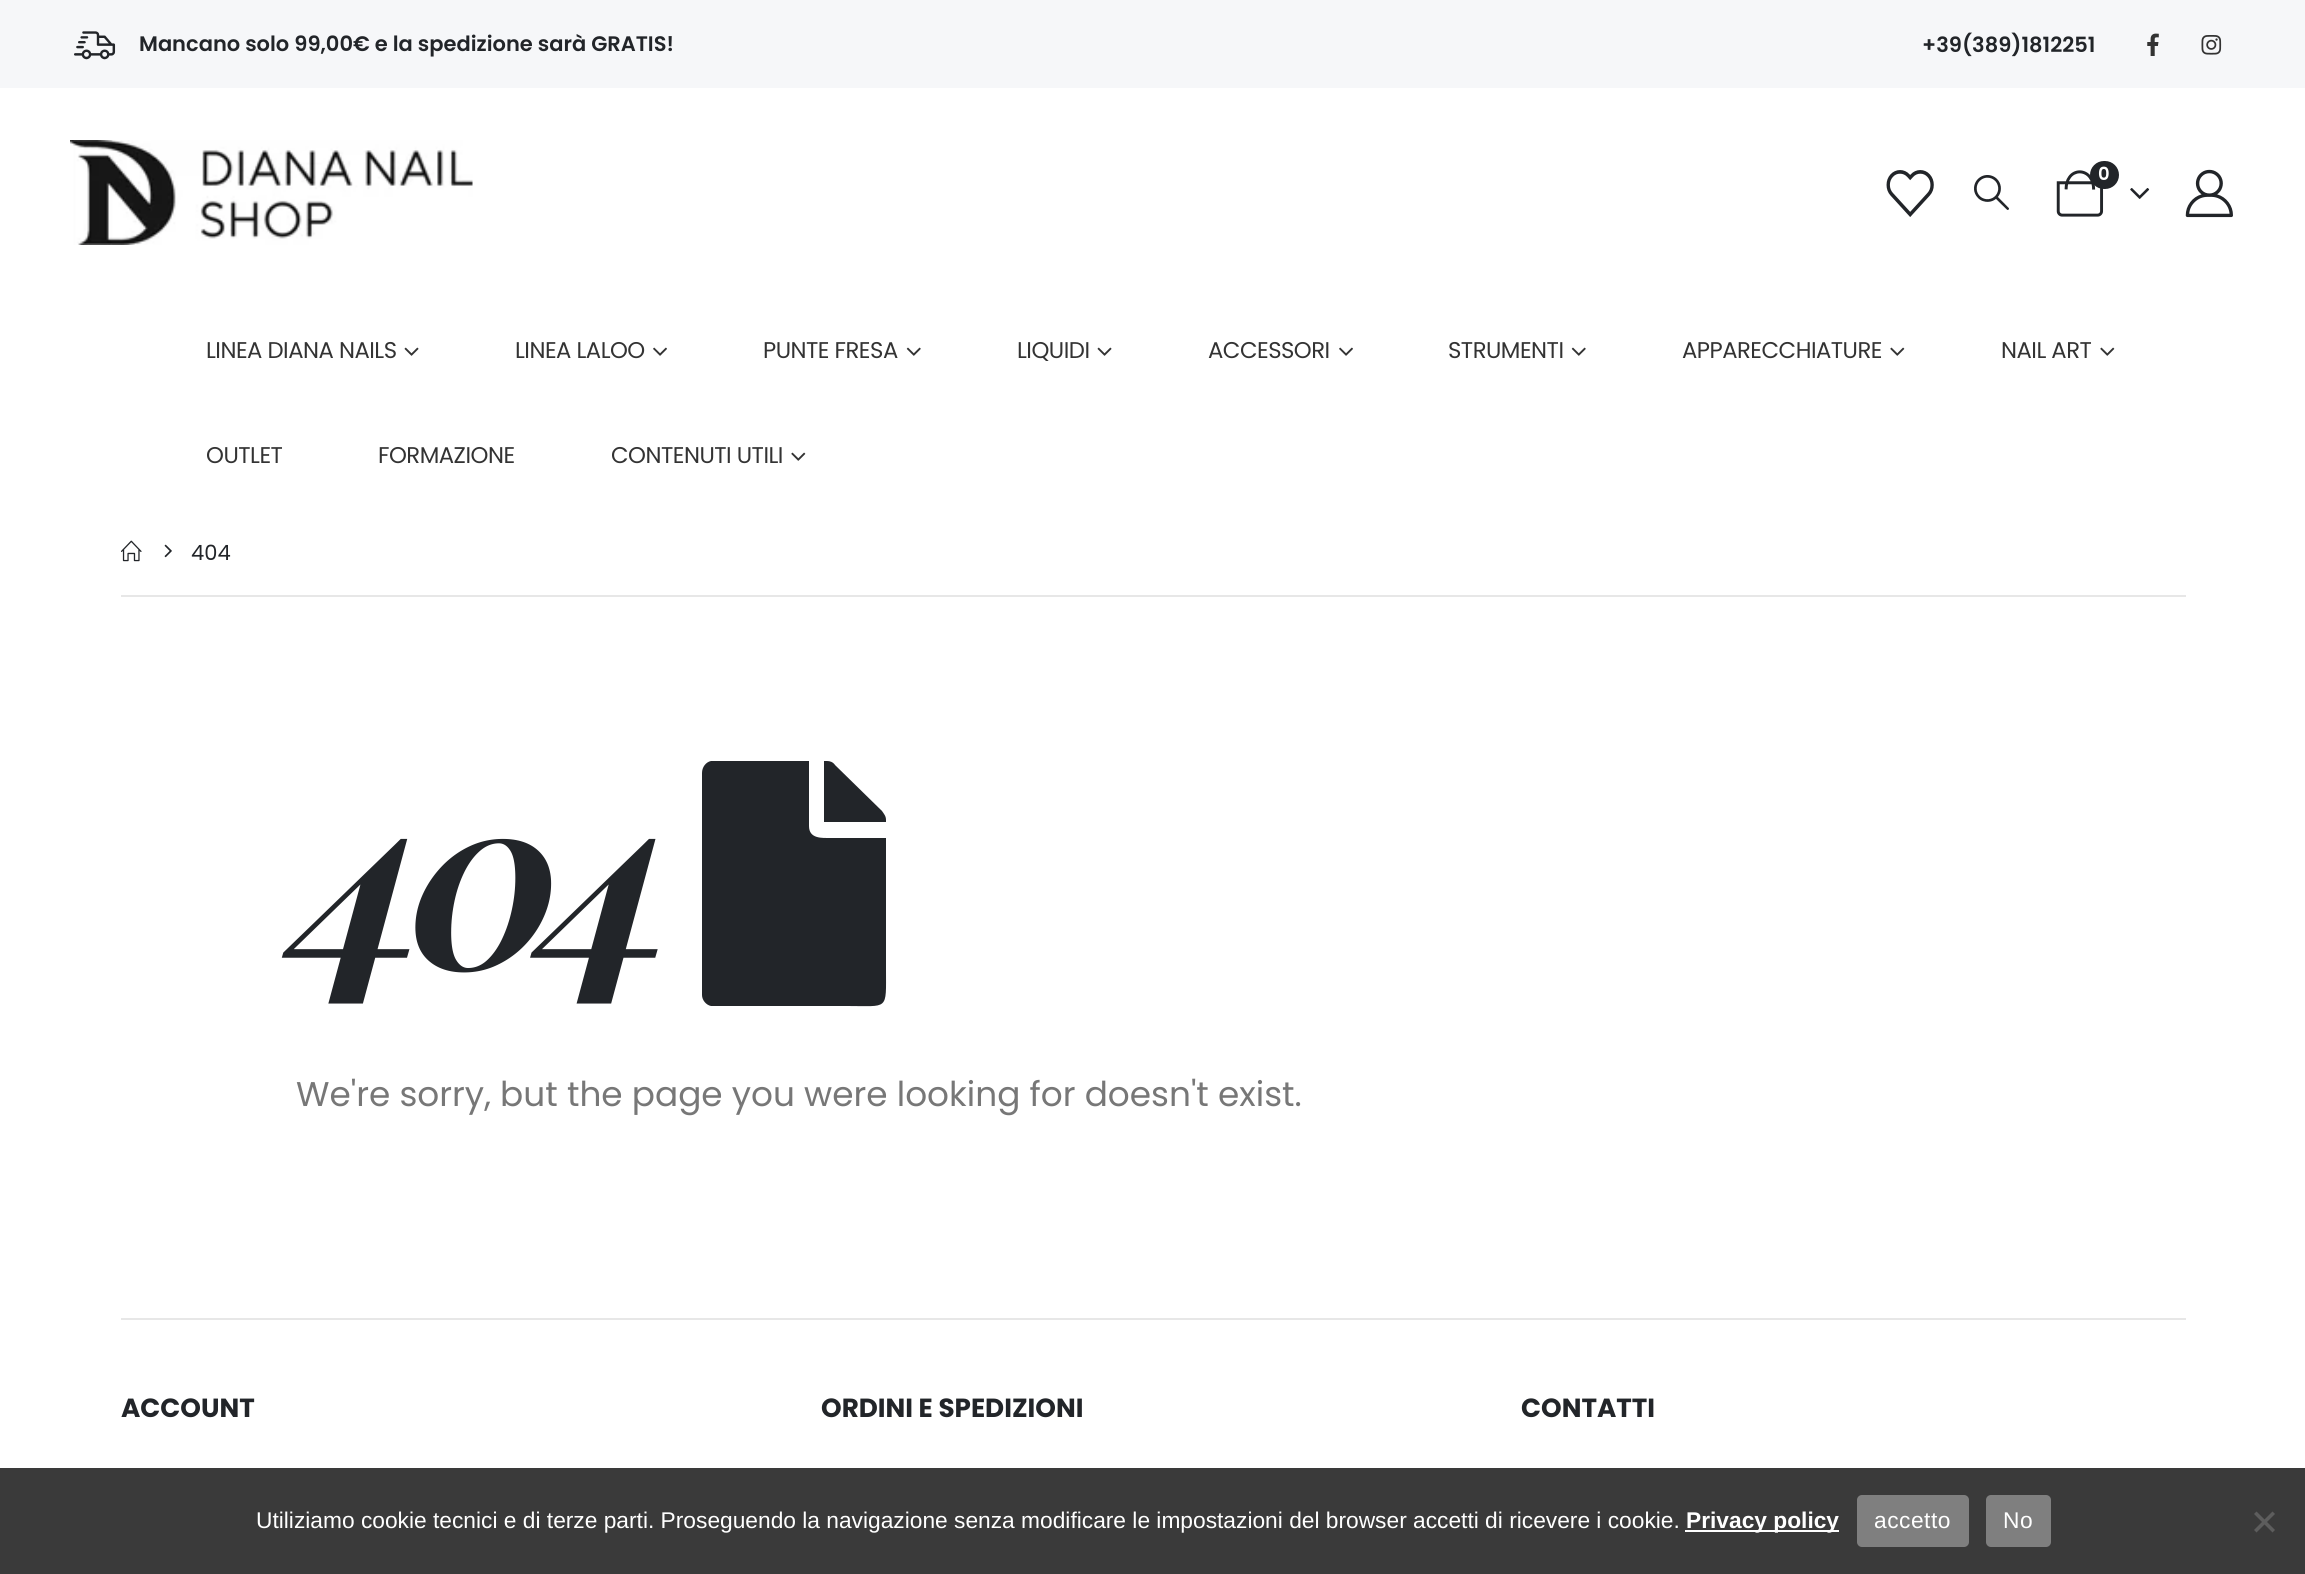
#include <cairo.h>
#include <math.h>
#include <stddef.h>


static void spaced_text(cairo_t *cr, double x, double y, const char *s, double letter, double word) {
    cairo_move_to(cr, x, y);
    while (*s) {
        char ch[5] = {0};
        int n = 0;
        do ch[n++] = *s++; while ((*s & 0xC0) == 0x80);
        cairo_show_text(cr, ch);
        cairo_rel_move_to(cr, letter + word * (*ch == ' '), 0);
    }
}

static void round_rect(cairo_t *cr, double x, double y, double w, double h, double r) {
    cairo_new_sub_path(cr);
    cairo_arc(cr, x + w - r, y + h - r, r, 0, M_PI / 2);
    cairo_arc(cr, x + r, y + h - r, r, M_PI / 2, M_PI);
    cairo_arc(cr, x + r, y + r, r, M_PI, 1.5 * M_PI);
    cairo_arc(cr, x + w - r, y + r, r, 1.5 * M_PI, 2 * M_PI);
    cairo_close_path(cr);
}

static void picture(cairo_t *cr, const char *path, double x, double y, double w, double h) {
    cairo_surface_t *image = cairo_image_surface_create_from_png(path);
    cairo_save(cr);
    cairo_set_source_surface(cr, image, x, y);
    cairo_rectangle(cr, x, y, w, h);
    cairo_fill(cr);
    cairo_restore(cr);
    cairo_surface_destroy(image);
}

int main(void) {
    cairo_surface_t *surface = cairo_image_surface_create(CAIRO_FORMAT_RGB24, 2305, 1574);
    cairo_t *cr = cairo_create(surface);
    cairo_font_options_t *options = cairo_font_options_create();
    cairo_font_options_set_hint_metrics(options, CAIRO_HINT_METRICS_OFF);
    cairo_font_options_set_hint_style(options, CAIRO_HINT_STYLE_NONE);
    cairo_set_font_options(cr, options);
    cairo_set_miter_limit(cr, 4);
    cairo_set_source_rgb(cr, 1, 1, 1);
    cairo_paint(cr);
    cairo_set_source_rgb(cr, 0.961, 0.965, 0.973);
    cairo_rectangle(cr, 0, 0, 2305, 88);
    cairo_fill(cr);
    picture(cr, "img1.png", 74, 31, 42, 29);
    cairo_select_font_face(cr, "Poppins SemiBold", CAIRO_FONT_SLANT_NORMAL, CAIRO_FONT_WEIGHT_NORMAL);
    cairo_set_font_size(cr, 21);
    cairo_set_source_rgb(cr, 0.133, 0.145, 0.161);
    cairo_move_to(cr, 139, 51);
    cairo_show_text(cr, "Mancano solo 99,00€ e la spedizione sarà GRATIS!");
    cairo_move_to(cr, 1922, 52);
    cairo_show_text(cr, "+39(389)1812251");
    picture(cr, "img2.png", 2147, 33, 12, 23);
    picture(cr, "img3.png", 2201, 35, 21, 20);
    picture(cr, "img4.png", 70, 140, 403, 105);
    picture(cr, "img5.png", 1886, 170, 48, 47);
    picture(cr, "img6.png", 1974, 175, 35, 35);
    picture(cr, "img7.png", 2056, 170, 48, 47);
    round_rect(cr, 2090, 161, 29, 28, 14);
    cairo_fill(cr);
    cairo_set_font_size(cr, 18);
    cairo_set_source_rgb(cr, 1, 1, 1);
    cairo_move_to(cr, 2098, 180);
    cairo_show_text(cr, "0");
    picture(cr, "img8.png", 2130, 188, 20, 11);
    picture(cr, "img9.png", 2185, 169, 48, 49);
    cairo_select_font_face(cr, "Poppins", CAIRO_FONT_SLANT_NORMAL, CAIRO_FONT_WEIGHT_NORMAL);
    cairo_set_font_size(cr, 22.75);
    cairo_set_source_rgb(cr, 0.2, 0.2, 0.2);
    spaced_text(cr, 206, 358, "LINEA DIANA NAILS", -0.5, 0);
    picture(cr, "img10.png", 404, 347, 15, 9);
    spaced_text(cr, 515, 358, "LINEA LALOO", -0.5, 0);
    picture(cr, "img11.png", 653, 347, 14, 9);
    spaced_text(cr, 763, 358, "PUNTE FRESA", -0.5, 0);
    picture(cr, "img12.png", 906, 347, 15, 9);
    spaced_text(cr, 1017, 358, "LIQUIDI", -0.5, 0);
    picture(cr, "img10.png", 1097, 347, 15, 9);
    spaced_text(cr, 1208, 358, "ACCESSORI", -0.5, 0);
    picture(cr, "img11.png", 1339, 347, 14, 9);
    spaced_text(cr, 1448, 358, "STRUMENTI", -0.5, 0);
    picture(cr, "img12.png", 1571, 347, 15, 9);
    spaced_text(cr, 1682, 358, "APPARECCHIATURE", -0.5, 0);
    picture(cr, "img13.png", 1890, 347, 15, 9);
    spaced_text(cr, 2001, 358, "NAIL ART", -0.5, 0);
    picture(cr, "img13.png", 2100, 347, 15, 9);
    spaced_text(cr, 206, 463, "OUTLET", -0.5, 0);
    spaced_text(cr, 378, 463, "FORMAZIONE", -0.5, 0);
    spaced_text(cr, 611, 463, "CONTENUTI UTILI", -0.5, 0);
    picture(cr, "img13.png", 791, 452, 15, 9);
    picture(cr, "img14.png", 121, 540, 21, 22);
    picture(cr, "img15.png", 164, 544, 8, 14);
    cairo_set_font_size(cr, 21);
    cairo_set_source_rgb(cr, 0.133, 0.145, 0.161);
    cairo_move_to(cr, 191, 560);
    cairo_show_text(cr, "404");
    cairo_set_source_rgb(cr, 0.906, 0.906, 0.906);
    cairo_rectangle(cr, 121, 595, 2065, 2);
    cairo_fill(cr);
    cairo_select_font_face(cr, "Playfair Display", CAIRO_FONT_SLANT_ITALIC, CAIRO_FONT_WEIGHT_BOLD);
    cairo_set_font_size(cr, 245);
    cairo_set_source_rgb(cr, 0.133, 0.145, 0.161);
    spaced_text(cr, 296, 969, "404", -17.5, 0);
    cairo_new_path(cr);
    cairo_move_to(cr, 809, 826);
    cairo_line_to(cr, 809, 761);
    cairo_line_to(cr, 711, 761);
    cairo_curve_to(cr, 706, 762, 702, 767, 702, 773);
    cairo_line_to(cr, 702, 995);
    cairo_curve_to(cr, 702, 1000, 706, 1005, 711, 1006);
    cairo_line_to(cr, 847, 1006);
    cairo_curve_to(cr, 889, 1006, 886, 1011, 886, 969);
    cairo_line_to(cr, 886, 838);
    cairo_line_to(cr, 831, 838);
    cairo_curve_to(cr, 822, 838, 809, 839, 809, 826);
    cairo_close_path(cr);
    cairo_move_to(cr, 886, 820);
    cairo_line_to(cr, 886, 822);
    cairo_line_to(cr, 824, 822);
    cairo_line_to(cr, 824, 761);
    cairo_line_to(cr, 827, 761);
    cairo_curve_to(cr, 830, 761, 833, 762, 835, 765);
    cairo_line_to(cr, 882, 811);
    cairo_curve_to(cr, 884, 814, 886, 816, 886, 820);
    cairo_close_path(cr);
    cairo_fill(cr);
    cairo_select_font_face(cr, "Poppins", CAIRO_FONT_SLANT_NORMAL, CAIRO_FONT_WEIGHT_NORMAL);
    cairo_set_font_size(cr, 34.3);
    cairo_set_source_rgb(cr, 0.467, 0.467, 0.467);
    cairo_move_to(cr, 296, 1106);
    cairo_show_text(cr, "We're sorry, but the page you were looking for doesn't exist.");
    cairo_set_source_rgb(cr, 0.906, 0.906, 0.906);
    cairo_rectangle(cr, 121, 1318, 2065, 2);
    cairo_fill(cr);
    cairo_select_font_face(cr, "Poppins", CAIRO_FONT_SLANT_NORMAL, CAIRO_FONT_WEIGHT_BOLD);
    cairo_set_font_size(cr, 26.25);
    cairo_set_source_rgb(cr, 0.133, 0.145, 0.161);
    cairo_move_to(cr, 121, 1417);
    cairo_show_text(cr, "ACCOUNT");
    cairo_move_to(cr, 821, 1417);
    cairo_show_text(cr, "ORDINI E SPEDIZIONI");
    cairo_move_to(cr, 1521, 1417);
    cairo_show_text(cr, "CONTATTI");
    cairo_set_source_rgb(cr, 0.227, 0.227, 0.227);
    cairo_rectangle(cr, 0, 1468, 2305, 106);
    cairo_fill(cr);
    cairo_select_font_face(cr, "Liberation Sans", CAIRO_FONT_SLANT_NORMAL, CAIRO_FONT_WEIGHT_NORMAL);
    cairo_set_font_size(cr, 22.75);
    cairo_set_source_rgb(cr, 1, 1, 1);
    cairo_move_to(cr, 256, 1528);
    cairo_show_text(cr, "Utiliziamo cookie tecnici e di terze parti. Proseguendo la navigazione senza modificare le impostazioni del browser accetti di ricevere i cookie.");
    cairo_rectangle(cr, 1685, 1530, 154, 2);
    cairo_fill(cr);
    cairo_select_font_face(cr, "Liberation Sans", CAIRO_FONT_SLANT_NORMAL, CAIRO_FONT_WEIGHT_BOLD);
    cairo_move_to(cr, 1686, 1528);
    cairo_show_text(cr, "Privacy policy");
    cairo_set_source_rgb(cr, 0.498, 0.498, 0.498);
    round_rect(cr, 1857, 1495, 112, 52, 5);
    cairo_fill(cr);
    cairo_select_font_face(cr, "Liberation Sans", CAIRO_FONT_SLANT_NORMAL, CAIRO_FONT_WEIGHT_NORMAL);
    cairo_set_source_rgb(cr, 1, 1, 1);
    spaced_text(cr, 1874, 1528, "accetto", 0.5, 0);
    cairo_set_source_rgb(cr, 0.498, 0.498, 0.498);
    round_rect(cr, 1986, 1495, 65, 52, 5);
    cairo_fill(cr);
    cairo_set_source_rgb(cr, 1, 1, 1);
    spaced_text(cr, 2003, 1528, "No", 0.5, 0);
    cairo_set_source_rgb(cr, 0.365, 0.365, 0.365);
    cairo_new_path(cr);
    cairo_move_to(cr, 2272.5, 1511.5);
    cairo_line_to(cr, 2275, 1514);
    cairo_line_to(cr, 2256.5, 1532.5);
    cairo_line_to(cr, 2254, 1530);
    cairo_close_path(cr);
    cairo_fill(cr);
    cairo_new_path(cr);
    cairo_move_to(cr, 2254, 1514);
    cairo_line_to(cr, 2256.5, 1511.5);
    cairo_line_to(cr, 2275, 1530);
    cairo_line_to(cr, 2272.5, 1532.5);
    cairo_close_path(cr);
    cairo_fill(cr);
    cairo_surface_write_to_png(surface, "page.png");
    cairo_font_options_destroy(options);
    cairo_destroy(cr);
    cairo_surface_destroy(surface);
    return 0;
}
